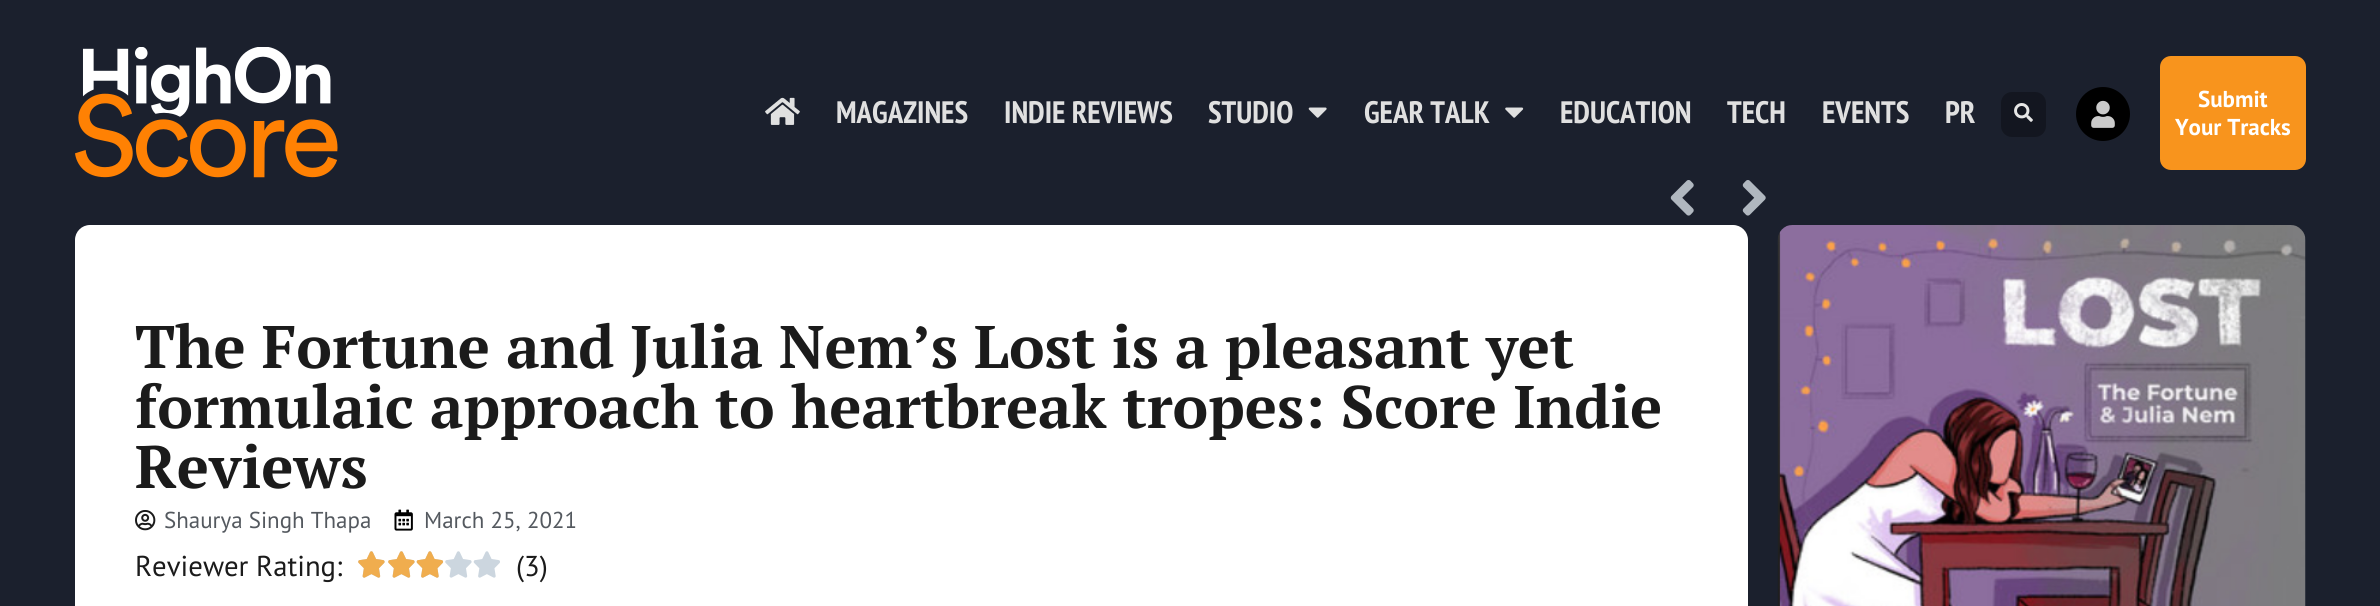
#include <cairo.h>
#include <math.h>
#include <stddef.h>


static void round_rect(cairo_t *cr, double x, double y, double w, double h, double r) {
    cairo_new_sub_path(cr);
    cairo_arc(cr, x + w - r, y + h - r, r, 0, M_PI / 2);
    cairo_arc(cr, x + r, y + h - r, r, M_PI / 2, M_PI);
    cairo_arc(cr, x + r, y + r, r, M_PI, 1.5 * M_PI);
    cairo_arc(cr, x + w - r, y + r, r, 1.5 * M_PI, 2 * M_PI);
    cairo_close_path(cr);
}

static void picture(cairo_t *cr, const char *path, double x, double y, double w, double h) {
    cairo_surface_t *image = cairo_image_surface_create_from_png(path);
    cairo_save(cr);
    cairo_set_source_surface(cr, image, x, y);
    cairo_rectangle(cr, x, y, w, h);
    cairo_fill(cr);
    cairo_restore(cr);
    cairo_surface_destroy(image);
}

int main(void) {
    cairo_surface_t *surface = cairo_image_surface_create(CAIRO_FORMAT_RGB24, 2380, 606);
    cairo_t *cr = cairo_create(surface);
    cairo_font_options_t *options = cairo_font_options_create();
    cairo_font_options_set_hint_metrics(options, CAIRO_HINT_METRICS_OFF);
    cairo_font_options_set_hint_style(options, CAIRO_HINT_STYLE_NONE);
    cairo_set_font_options(cr, options);
    cairo_set_miter_limit(cr, 4);
    cairo_set_source_rgb(cr, 0.106, 0.125, 0.176);
    cairo_paint(cr);
    picture(cr, "img1.png", 75, 47, 263, 131);
    picture(cr, "img2.png", 765, 97, 35, 28);
    cairo_select_font_face(cr, "PT Sans Narrow", CAIRO_FONT_SLANT_NORMAL, CAIRO_FONT_WEIGHT_BOLD);
    cairo_set_font_size(cr, 31);
    cairo_set_source_rgb(cr, 0.878, 0.878, 0.878);
    cairo_move_to(cr, 836, 123);
    cairo_show_text(cr, "MAGAZINES");
    cairo_move_to(cr, 1004, 123);
    cairo_show_text(cr, "INDIE REVIEWS");
    cairo_move_to(cr, 1208, 123);
    cairo_show_text(cr, "STUDIO");
    picture(cr, "img3.png", 1308, 107, 19, 11);
    cairo_move_to(cr, 1364, 123);
    cairo_show_text(cr, "GEAR TALK");
    picture(cr, "img4.png", 1505, 107, 19, 11);
    cairo_move_to(cr, 1560, 123);
    cairo_show_text(cr, "EDUCATION");
    cairo_move_to(cr, 1727, 123);
    cairo_show_text(cr, "TECH");
    cairo_move_to(cr, 1822, 123);
    cairo_show_text(cr, "EVENTS");
    cairo_move_to(cr, 1945, 123);
    cairo_show_text(cr, "PR");
    cairo_set_source_rgb(cr, 0.075, 0.086, 0.125);
    round_rect(cr, 2001, 92, 45, 45, 11);
    cairo_fill(cr);
    picture(cr, "img5.png", 2014, 103, 19, 19);
    cairo_set_source_rgb(cr, 0, 0, 0);
    cairo_arc(cr, 2103, 114, 27, 0, 2 * M_PI);
    cairo_fill(cr);
    picture(cr, "img6.png", 2091, 100, 24, 28);
    cairo_set_source_rgb(cr, 0.969, 0.58, 0.114);
    round_rect(cr, 2160, 56, 146, 114, 11);
    cairo_fill(cr);
    cairo_select_font_face(cr, "PT Sans", CAIRO_FONT_SLANT_NORMAL, CAIRO_FONT_WEIGHT_BOLD);
    cairo_set_font_size(cr, 23);
    cairo_set_source_rgb(cr, 1, 1, 1);
    cairo_move_to(cr, 2198, 107);
    cairo_show_text(cr, "Submit");
    cairo_move_to(cr, 2175, 135);
    cairo_show_text(cr, "Your Tracks");
    round_rect(cr, 75, 225, 1673, 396, 15);
    cairo_fill(cr);
    picture(cr, "img7.png", 1670, 180, 24, 36);
    picture(cr, "img8.png", 1742, 180, 24, 36);
    cairo_select_font_face(cr, "PT Serif", CAIRO_FONT_SLANT_NORMAL, CAIRO_FONT_WEIGHT_BOLD);
    cairo_set_font_size(cr, 60);
    cairo_set_source_rgb(cr, 0.106, 0.106, 0.106);
    cairo_move_to(cr, 135, 368);
    cairo_show_text(cr, "The Fortune and Julia Nem’s Lost is a pleasant yet");
    cairo_move_to(cr, 135, 428);
    cairo_show_text(cr, "formulaic approach to heartbreak tropes: Score Indie");
    cairo_move_to(cr, 135, 488);
    cairo_show_text(cr, "Reviews");
    picture(cr, "img9.png", 135, 510, 21, 21);
    cairo_select_font_face(cr, "PT Sans", CAIRO_FONT_SLANT_NORMAL, CAIRO_FONT_WEIGHT_NORMAL);
    cairo_set_font_size(cr, 23);
    cairo_set_source_rgb(cr, 0.329, 0.349, 0.373);
    cairo_move_to(cr, 164, 528);
    cairo_show_text(cr, "Shaurya Singh Thapa");
    picture(cr, "img10.png", 394, 509, 19, 22);
    cairo_move_to(cr, 424, 528);
    cairo_show_text(cr, "March 25, 2021");
    cairo_set_font_size(cr, 28.75);
    cairo_set_source_rgb(cr, 0.106, 0.106, 0.106);
    cairo_move_to(cr, 135, 576);
    cairo_show_text(cr, "Reviewer Rating:");
    picture(cr, "img11.png", 358, 551, 27, 27);
    picture(cr, "img12.png", 358, 551, 27, 27);
    picture(cr, "img11.png", 388, 551, 27, 27);
    picture(cr, "img12.png", 388, 551, 27, 27);
    picture(cr, "img13.png", 416, 551, 27, 27);
    picture(cr, "img14.png", 416, 551, 28, 27);
    picture(cr, "img11.png", 445, 551, 27, 27);
    picture(cr, "img13.png", 473, 551, 27, 27);
    cairo_move_to(cr, 516, 576);
    cairo_show_text(cr, "(3)");
    picture(cr, "img15.png", 1777, 225, 529, 381);
    cairo_surface_write_to_png(surface, "page.png");
    cairo_font_options_destroy(options);
    cairo_destroy(cr);
    cairo_surface_destroy(surface);
    return 0;
}
